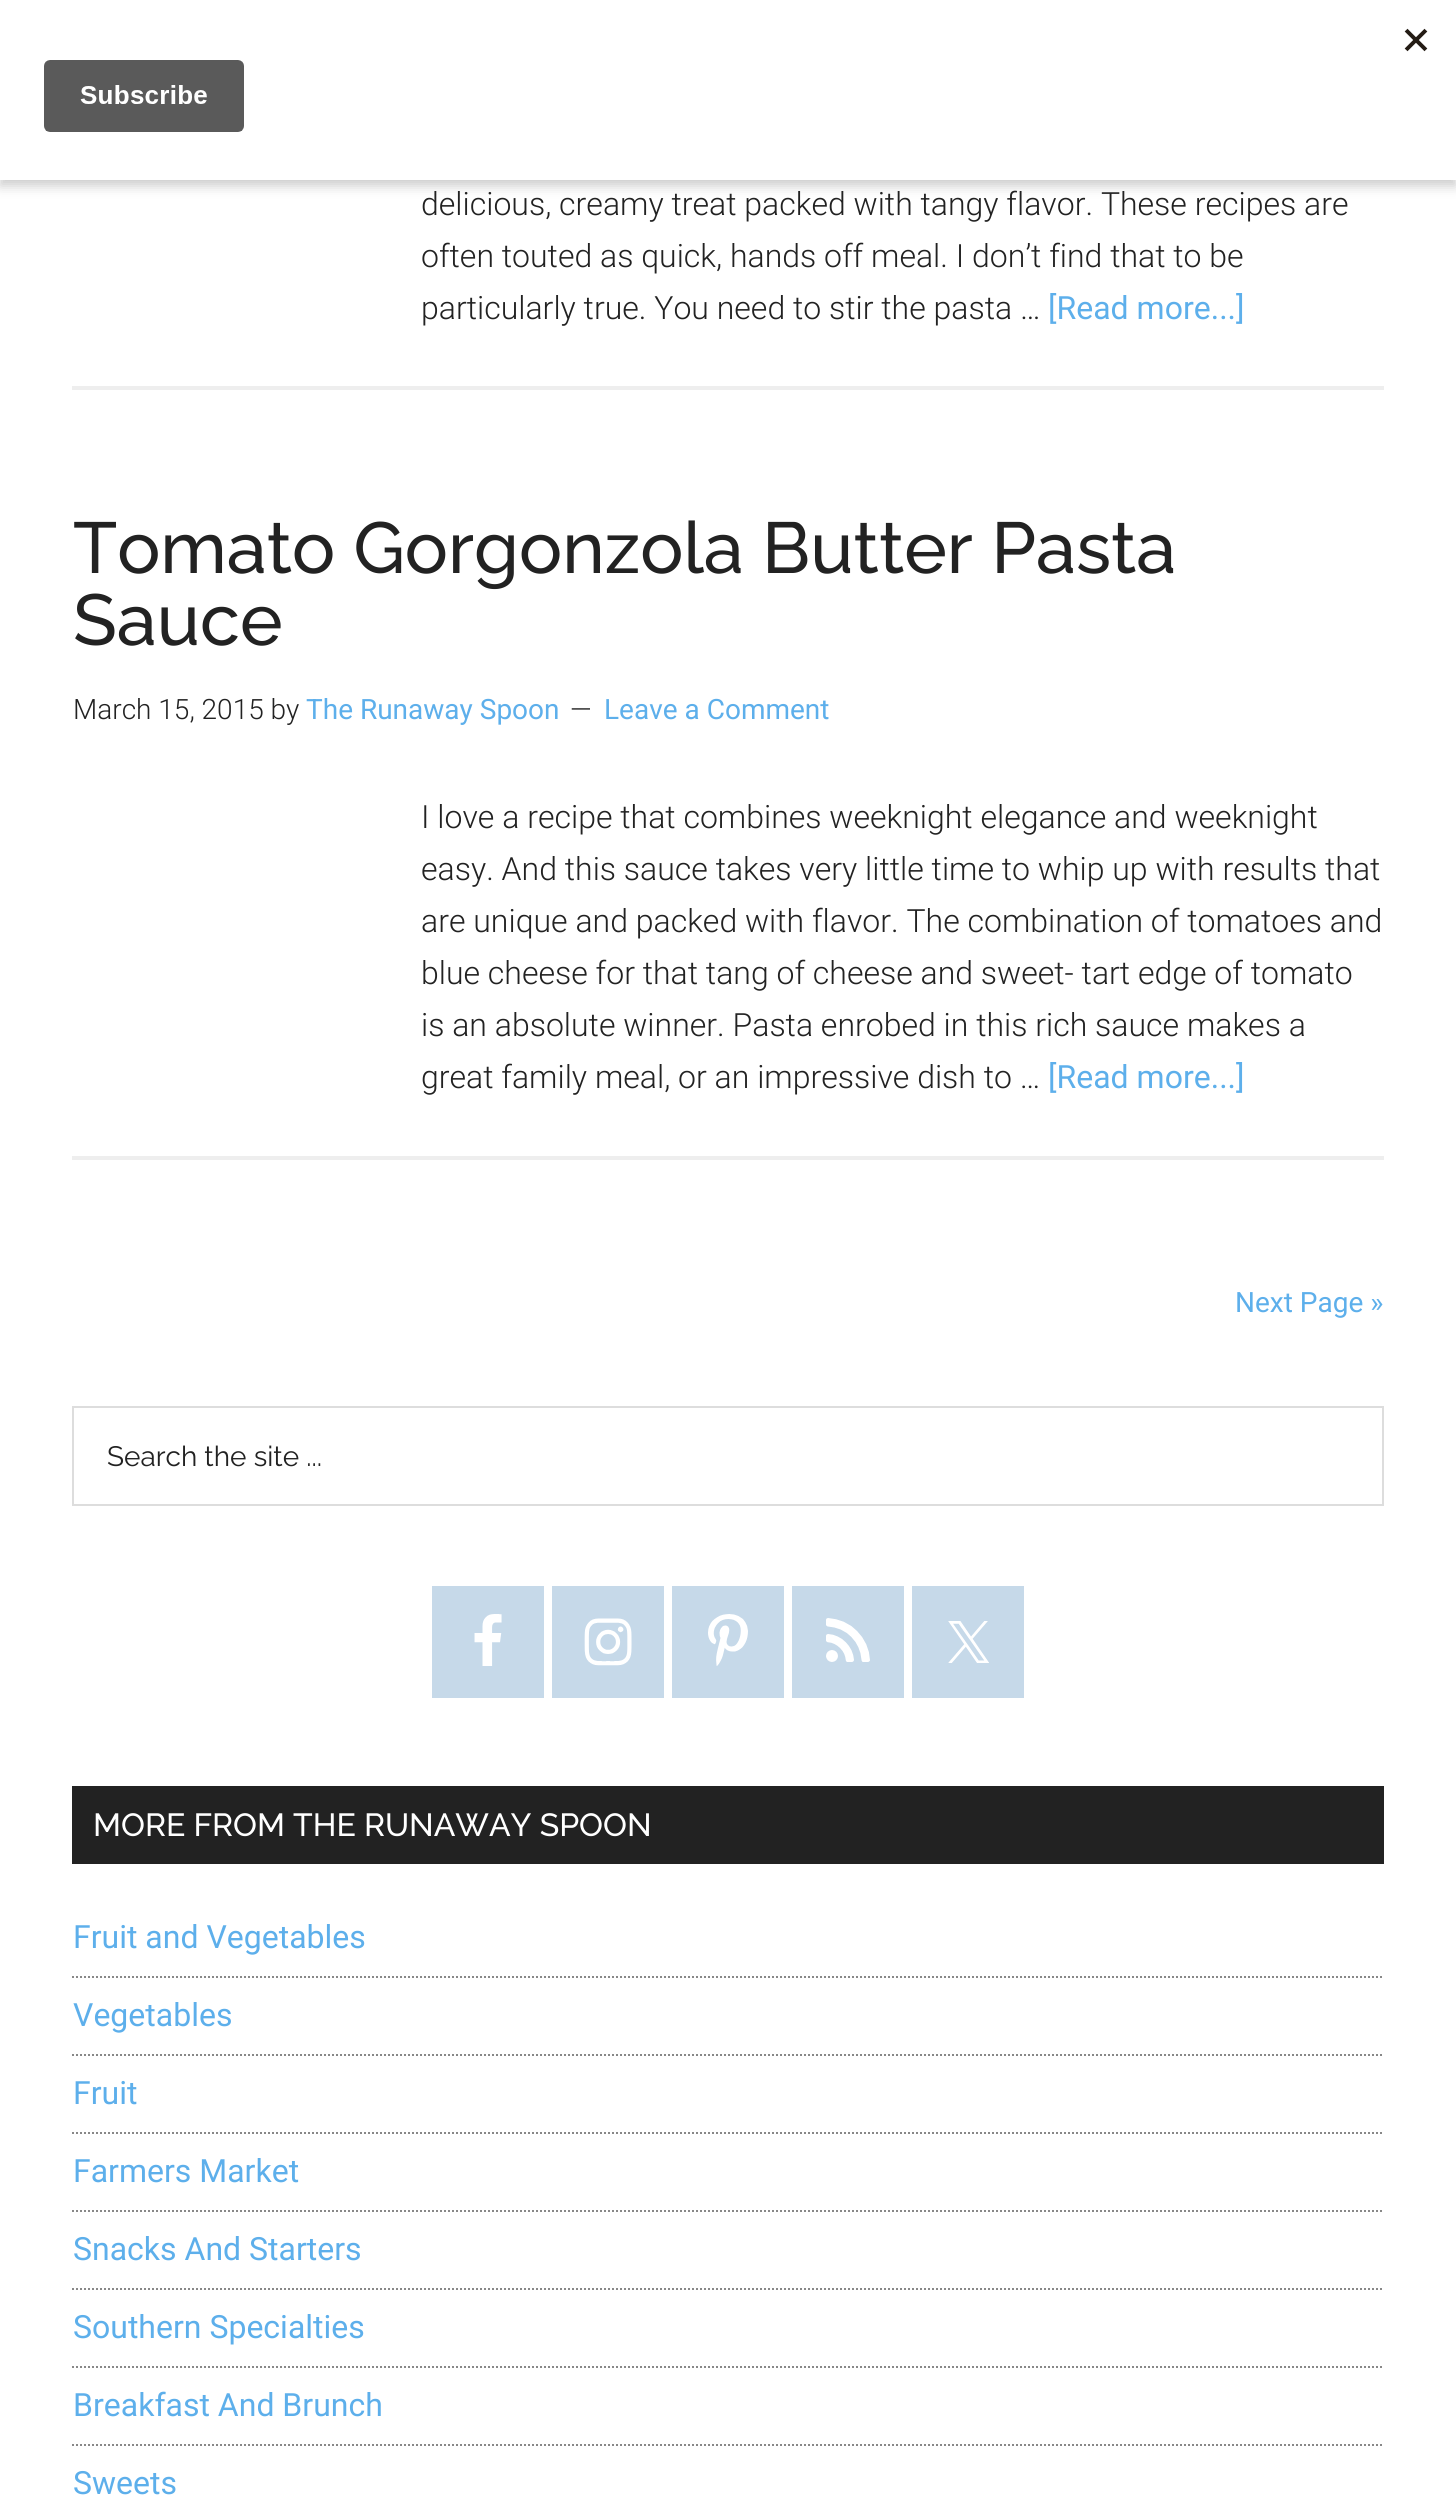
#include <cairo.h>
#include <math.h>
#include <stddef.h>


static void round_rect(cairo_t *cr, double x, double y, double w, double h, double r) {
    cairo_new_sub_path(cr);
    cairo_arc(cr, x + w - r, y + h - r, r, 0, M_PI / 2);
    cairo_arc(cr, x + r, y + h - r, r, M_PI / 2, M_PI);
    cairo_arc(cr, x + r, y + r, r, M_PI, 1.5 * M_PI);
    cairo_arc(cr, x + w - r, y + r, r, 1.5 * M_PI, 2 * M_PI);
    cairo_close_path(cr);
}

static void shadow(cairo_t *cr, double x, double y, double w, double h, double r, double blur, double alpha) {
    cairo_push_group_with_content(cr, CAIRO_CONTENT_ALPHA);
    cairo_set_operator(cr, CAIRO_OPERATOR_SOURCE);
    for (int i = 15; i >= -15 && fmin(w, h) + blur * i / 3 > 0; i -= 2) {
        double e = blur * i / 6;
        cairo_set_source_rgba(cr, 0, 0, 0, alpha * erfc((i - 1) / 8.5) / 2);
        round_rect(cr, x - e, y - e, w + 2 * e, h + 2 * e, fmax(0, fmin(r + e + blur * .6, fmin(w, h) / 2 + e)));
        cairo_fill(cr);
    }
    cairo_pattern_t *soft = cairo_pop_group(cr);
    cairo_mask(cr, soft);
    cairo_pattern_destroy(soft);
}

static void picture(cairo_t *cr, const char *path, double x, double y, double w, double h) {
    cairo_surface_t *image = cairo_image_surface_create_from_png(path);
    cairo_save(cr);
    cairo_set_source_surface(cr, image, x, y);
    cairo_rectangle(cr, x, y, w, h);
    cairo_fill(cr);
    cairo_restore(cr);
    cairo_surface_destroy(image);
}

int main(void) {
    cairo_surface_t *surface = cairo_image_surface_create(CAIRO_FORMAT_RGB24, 1456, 2511);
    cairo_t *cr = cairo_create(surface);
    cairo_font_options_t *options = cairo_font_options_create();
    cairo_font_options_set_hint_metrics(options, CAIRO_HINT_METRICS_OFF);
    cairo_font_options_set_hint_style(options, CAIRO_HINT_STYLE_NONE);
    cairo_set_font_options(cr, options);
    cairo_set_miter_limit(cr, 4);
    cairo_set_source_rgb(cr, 1, 1, 1);
    cairo_paint(cr);
    cairo_set_source_rgb(cr, 0, 0, 0);
    shadow(cr, 0, 6, 1456, 180, 0, 6, 0.2);
    cairo_set_source_rgb(cr, 1, 1, 1);
    cairo_rectangle(cr, 0, 0, 1456, 180);
    cairo_fill(cr);
    picture(cr, "img1.png", 44, 28, 1384, 104);
    cairo_set_source_rgb(cr, 0.933, 0.933, 0.933);
    cairo_rectangle(cr, 72, 386, 1312, 4);
    cairo_fill(cr);
    cairo_select_font_face(cr, "Roboto Light", CAIRO_FONT_SLANT_NORMAL, CAIRO_FONT_WEIGHT_NORMAL);
    cairo_set_font_size(cr, 32);
    cairo_set_source_rgb(cr, 0.133, 0.133, 0.133);
    cairo_move_to(cr, 421, 215);
    cairo_show_text(cr, "delicious, creamy treat packed with tangy flavor. These recipes are");
    cairo_move_to(cr, 421, 267);
    cairo_show_text(cr, "often touted as quick, hands off meal. I don’t find that to be");
    cairo_move_to(cr, 421, 319);
    cairo_show_text(cr, "particularly true. You need to stir the pasta …");
    cairo_select_font_face(cr, "Roboto", CAIRO_FONT_SLANT_NORMAL, CAIRO_FONT_WEIGHT_NORMAL);
    cairo_set_source_rgb(cr, 0.365, 0.686, 0.918);
    cairo_move_to(cr, 1048, 319);
    cairo_show_text(cr, "[Read more...]");
    cairo_set_source_rgb(cr, 0.933, 0.933, 0.933);
    cairo_rectangle(cr, 72, 1156, 1312, 4);
    cairo_fill(cr);
    cairo_select_font_face(cr, "Raleway Medium", CAIRO_FONT_SLANT_NORMAL, CAIRO_FONT_WEIGHT_NORMAL);
    cairo_set_font_size(cr, 72);
    cairo_set_source_rgb(cr, 0.133, 0.133, 0.133);
    cairo_move_to(cr, 73, 573);
    cairo_show_text(cr, "Tomato Gorgonzola Butter Pasta");
    cairo_move_to(cr, 73, 645);
    cairo_show_text(cr, "Sauce");
    cairo_select_font_face(cr, "Roboto Light", CAIRO_FONT_SLANT_NORMAL, CAIRO_FONT_WEIGHT_NORMAL);
    cairo_set_font_size(cr, 28);
    cairo_move_to(cr, 73, 719);
    cairo_show_text(cr, "March 15, 2015 by");
    cairo_select_font_face(cr, "Roboto", CAIRO_FONT_SLANT_NORMAL, CAIRO_FONT_WEIGHT_NORMAL);
    cairo_set_source_rgb(cr, 0.365, 0.686, 0.918);
    cairo_move_to(cr, 306, 719);
    cairo_show_text(cr, "The Runaway Spoon");
    cairo_select_font_face(cr, "Roboto Light", CAIRO_FONT_SLANT_NORMAL, CAIRO_FONT_WEIGHT_NORMAL);
    cairo_set_source_rgb(cr, 0.133, 0.133, 0.133);
    cairo_move_to(cr, 570, 719);
    cairo_show_text(cr, "—");
    cairo_select_font_face(cr, "Roboto", CAIRO_FONT_SLANT_NORMAL, CAIRO_FONT_WEIGHT_NORMAL);
    cairo_set_source_rgb(cr, 0.365, 0.686, 0.918);
    cairo_move_to(cr, 604, 719);
    cairo_show_text(cr, "Leave a Comment");
    cairo_select_font_face(cr, "Roboto Light", CAIRO_FONT_SLANT_NORMAL, CAIRO_FONT_WEIGHT_NORMAL);
    cairo_set_font_size(cr, 32);
    cairo_set_source_rgb(cr, 0.133, 0.133, 0.133);
    cairo_move_to(cr, 421, 828);
    cairo_show_text(cr, "I love a recipe that combines weeknight elegance and weeknight");
    cairo_move_to(cr, 421, 880);
    cairo_show_text(cr, "easy. And this sauce takes very little time to whip up with results that");
    cairo_move_to(cr, 421, 932);
    cairo_show_text(cr, "are unique and packed with flavor. The combination of tomatoes and");
    cairo_move_to(cr, 421, 984);
    cairo_show_text(cr, "blue cheese for that tang of cheese and sweet- tart edge of tomato");
    cairo_move_to(cr, 421, 1036);
    cairo_show_text(cr, "is an absolute winner. Pasta enrobed in this rich sauce makes a");
    cairo_move_to(cr, 421, 1088);
    cairo_show_text(cr, "great family meal, or an impressive dish to …");
    cairo_select_font_face(cr, "Roboto", CAIRO_FONT_SLANT_NORMAL, CAIRO_FONT_WEIGHT_NORMAL);
    cairo_set_source_rgb(cr, 0.365, 0.686, 0.918);
    cairo_move_to(cr, 1048, 1088);
    cairo_show_text(cr, "[Read more...]");
    cairo_set_font_size(cr, 28);
    cairo_move_to(cr, 1235, 1312);
    cairo_show_text(cr, "Next Page »");
    cairo_rectangle(cr, 73, 1407, 1310, 98);
    cairo_set_source_rgb(cr, 0.867, 0.867, 0.867);
    cairo_stroke(cr);
    cairo_select_font_face(cr, "Raleway", CAIRO_FONT_SLANT_NORMAL, CAIRO_FONT_WEIGHT_NORMAL);
    cairo_set_source_rgb(cr, 0.133, 0.133, 0.133);
    cairo_move_to(cr, 107, 1466);
    cairo_show_text(cr, "Search the site ...");
    cairo_set_source_rgb(cr, 0.776, 0.851, 0.914);
    cairo_rectangle(cr, 432, 1586, 112, 112);
    cairo_fill(cr);
    picture(cr, "img2.png", 474, 1614, 28, 52);
    cairo_rectangle(cr, 552, 1586, 112, 112);
    cairo_fill(cr);
    picture(cr, "img3.png", 584, 1618, 48, 48);
    cairo_rectangle(cr, 672, 1586, 112, 112);
    cairo_fill(cr);
    picture(cr, "img4.png", 708, 1614, 40, 52);
    cairo_rectangle(cr, 792, 1586, 112, 112);
    cairo_fill(cr);
    picture(cr, "img5.png", 826, 1618, 44, 44);
    cairo_rectangle(cr, 912, 1586, 112, 112);
    cairo_fill(cr);
    picture(cr, "img6.png", 948, 1621, 41, 42);
    cairo_set_source_rgb(cr, 0.133, 0.133, 0.133);
    cairo_rectangle(cr, 72, 1786, 1312, 78);
    cairo_fill(cr);
    cairo_select_font_face(cr, "Raleway Medium", CAIRO_FONT_SLANT_NORMAL, CAIRO_FONT_WEIGHT_NORMAL);
    cairo_set_font_size(cr, 32);
    cairo_set_source_rgb(cr, 1, 1, 1);
    cairo_move_to(cr, 93, 1836);
    cairo_show_text(cr, "MORE FROM THE RUNAWAY SPOON");
    cairo_new_path(cr);
    cairo_move_to(cr, 72, 1977);
    cairo_line_to(cr, 1384, 1977);
    cairo_set_source_rgb(cr, 0.533, 0.533, 0.533);
    cairo_set_dash(cr, (double[]){2, 2}, 2, 0);
    cairo_stroke(cr);
    cairo_select_font_face(cr, "Roboto", CAIRO_FONT_SLANT_NORMAL, CAIRO_FONT_WEIGHT_NORMAL);
    cairo_set_source_rgb(cr, 0.365, 0.686, 0.918);
    cairo_move_to(cr, 73, 1948);
    cairo_show_text(cr, "Fruit and Vegetables");
    cairo_new_path(cr);
    cairo_move_to(cr, 72, 2055);
    cairo_line_to(cr, 1384, 2055);
    cairo_set_source_rgb(cr, 0.533, 0.533, 0.533);
    cairo_stroke(cr);
    cairo_set_source_rgb(cr, 0.365, 0.686, 0.918);
    cairo_move_to(cr, 73, 2026);
    cairo_show_text(cr, "Vegetables");
    cairo_new_path(cr);
    cairo_move_to(cr, 72, 2133);
    cairo_line_to(cr, 1384, 2133);
    cairo_set_source_rgb(cr, 0.533, 0.533, 0.533);
    cairo_stroke(cr);
    cairo_set_source_rgb(cr, 0.365, 0.686, 0.918);
    cairo_move_to(cr, 73, 2104);
    cairo_show_text(cr, "Fruit");
    cairo_new_path(cr);
    cairo_move_to(cr, 72, 2211);
    cairo_line_to(cr, 1384, 2211);
    cairo_set_source_rgb(cr, 0.533, 0.533, 0.533);
    cairo_stroke(cr);
    cairo_set_source_rgb(cr, 0.365, 0.686, 0.918);
    cairo_move_to(cr, 73, 2182);
    cairo_show_text(cr, "Farmers Market");
    cairo_new_path(cr);
    cairo_move_to(cr, 72, 2289);
    cairo_line_to(cr, 1384, 2289);
    cairo_set_source_rgb(cr, 0.533, 0.533, 0.533);
    cairo_stroke(cr);
    cairo_set_source_rgb(cr, 0.365, 0.686, 0.918);
    cairo_move_to(cr, 73, 2260);
    cairo_show_text(cr, "Snacks And Starters");
    cairo_new_path(cr);
    cairo_move_to(cr, 72, 2367);
    cairo_line_to(cr, 1384, 2367);
    cairo_set_source_rgb(cr, 0.533, 0.533, 0.533);
    cairo_stroke(cr);
    cairo_set_source_rgb(cr, 0.365, 0.686, 0.918);
    cairo_move_to(cr, 73, 2338);
    cairo_show_text(cr, "Southern Specialties");
    cairo_new_path(cr);
    cairo_move_to(cr, 72, 2445);
    cairo_line_to(cr, 1384, 2445);
    cairo_set_source_rgb(cr, 0.533, 0.533, 0.533);
    cairo_stroke(cr);
    cairo_set_source_rgb(cr, 0.365, 0.686, 0.918);
    cairo_move_to(cr, 73, 2416);
    cairo_show_text(cr, "Breakfast And Brunch");
    cairo_move_to(cr, 73, 2494);
    cairo_show_text(cr, "Sweets");
    cairo_surface_write_to_png(surface, "page.png");
    cairo_font_options_destroy(options);
    cairo_destroy(cr);
    cairo_surface_destroy(surface);
    return 0;
}
